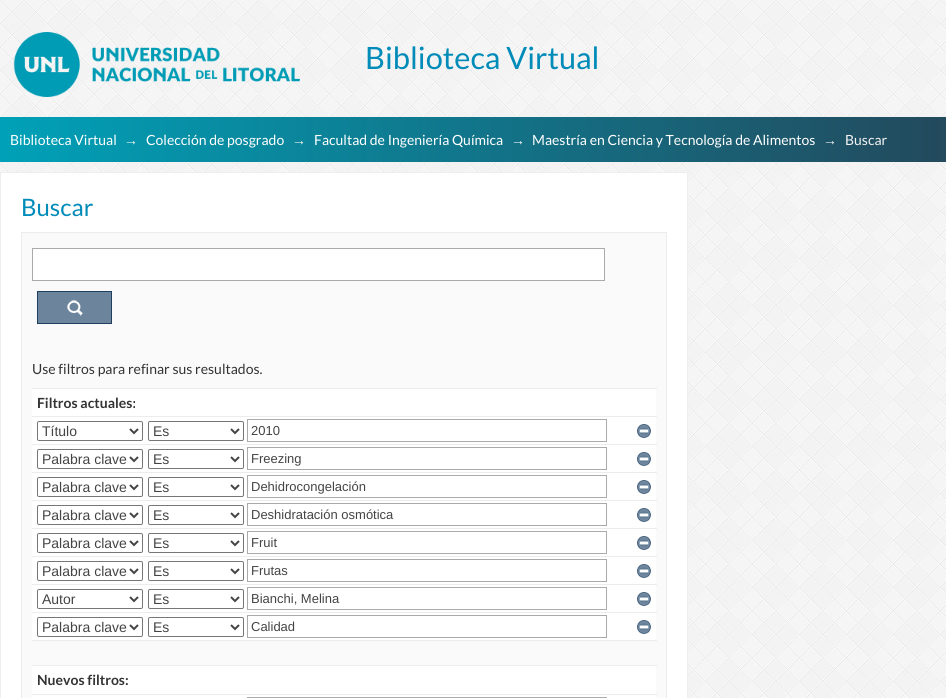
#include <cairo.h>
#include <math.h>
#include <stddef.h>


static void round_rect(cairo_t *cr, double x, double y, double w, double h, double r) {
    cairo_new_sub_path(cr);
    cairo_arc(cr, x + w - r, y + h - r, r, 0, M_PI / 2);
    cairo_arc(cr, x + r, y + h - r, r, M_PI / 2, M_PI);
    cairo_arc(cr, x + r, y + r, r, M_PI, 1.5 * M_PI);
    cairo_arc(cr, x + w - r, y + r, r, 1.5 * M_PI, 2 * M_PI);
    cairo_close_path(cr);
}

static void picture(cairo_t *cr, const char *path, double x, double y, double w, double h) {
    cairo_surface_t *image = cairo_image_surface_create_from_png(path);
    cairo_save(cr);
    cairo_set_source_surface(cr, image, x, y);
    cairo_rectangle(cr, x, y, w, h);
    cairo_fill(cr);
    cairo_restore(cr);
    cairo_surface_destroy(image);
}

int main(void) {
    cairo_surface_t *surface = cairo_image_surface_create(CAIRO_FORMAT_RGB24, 946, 698);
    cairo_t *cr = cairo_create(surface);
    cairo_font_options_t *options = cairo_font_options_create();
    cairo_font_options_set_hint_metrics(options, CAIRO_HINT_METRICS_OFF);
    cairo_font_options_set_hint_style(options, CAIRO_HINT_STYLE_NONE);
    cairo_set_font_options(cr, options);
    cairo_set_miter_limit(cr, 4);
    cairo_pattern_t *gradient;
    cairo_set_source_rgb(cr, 1, 1, 1);
    cairo_paint(cr);
    picture(cr, "img1.png", 0, 0, 946, 698);
    picture(cr, "img2.png", 13, 32, 287, 65);
    cairo_select_font_face(cr, "Lato", CAIRO_FONT_SLANT_NORMAL, CAIRO_FONT_WEIGHT_NORMAL);
    cairo_set_font_size(cr, 30.75);
    cairo_set_source_rgb(cr, 0, 0.545, 0.722);
    cairo_move_to(cr, 365, 69);
    cairo_show_text(cr, "Biblioteca Virtual");
    gradient = cairo_pattern_create_linear(0, 140, 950, 139);
    cairo_pattern_add_color_stop_rgba(gradient, 0, 0, 0.631, 0.722, 1);
    cairo_pattern_add_color_stop_rgba(gradient, 1, 0.137, 0.286, 0.361, 1);
    cairo_set_source(cr, gradient);
    cairo_pattern_destroy(gradient);
    cairo_rectangle(cr, 0, 117, 946, 45);
    cairo_fill(cr);
    cairo_set_font_size(cr, 14);
    cairo_set_source_rgb(cr, 1, 1, 1);
    cairo_move_to(cr, 10, 145);
    cairo_show_text(cr, "Biblioteca Virtual");
    cairo_select_font_face(cr, "Liberation Sans", CAIRO_FONT_SLANT_NORMAL, CAIRO_FONT_WEIGHT_NORMAL);
    cairo_set_source_rgb(cr, 0.953, 0.953, 0.953);
    cairo_move_to(cr, 124, 145);
    cairo_show_text(cr, "→");
    cairo_select_font_face(cr, "Lato", CAIRO_FONT_SLANT_NORMAL, CAIRO_FONT_WEIGHT_NORMAL);
    cairo_set_source_rgb(cr, 1, 1, 1);
    cairo_move_to(cr, 146, 145);
    cairo_show_text(cr, "Colección de posgrado");
    cairo_select_font_face(cr, "Liberation Sans", CAIRO_FONT_SLANT_NORMAL, CAIRO_FONT_WEIGHT_NORMAL);
    cairo_set_source_rgb(cr, 0.953, 0.953, 0.953);
    cairo_move_to(cr, 292, 145);
    cairo_show_text(cr, "→");
    cairo_select_font_face(cr, "Lato", CAIRO_FONT_SLANT_NORMAL, CAIRO_FONT_WEIGHT_NORMAL);
    cairo_set_source_rgb(cr, 1, 1, 1);
    cairo_move_to(cr, 314, 145);
    cairo_show_text(cr, "Facultad de Ingeniería Química");
    cairo_select_font_face(cr, "Liberation Sans", CAIRO_FONT_SLANT_NORMAL, CAIRO_FONT_WEIGHT_NORMAL);
    cairo_set_source_rgb(cr, 0.953, 0.953, 0.953);
    cairo_move_to(cr, 511, 145);
    cairo_show_text(cr, "→");
    cairo_select_font_face(cr, "Lato", CAIRO_FONT_SLANT_NORMAL, CAIRO_FONT_WEIGHT_NORMAL);
    cairo_set_source_rgb(cr, 1, 1, 1);
    cairo_move_to(cr, 532, 145);
    cairo_show_text(cr, "Maestría en Ciencia y Tecnología de Alimentos");
    cairo_select_font_face(cr, "Liberation Sans", CAIRO_FONT_SLANT_NORMAL, CAIRO_FONT_WEIGHT_NORMAL);
    cairo_set_source_rgb(cr, 0.953, 0.953, 0.953);
    cairo_move_to(cr, 823, 145);
    cairo_show_text(cr, "→");
    cairo_select_font_face(cr, "Lato", CAIRO_FONT_SLANT_NORMAL, CAIRO_FONT_WEIGHT_NORMAL);
    cairo_move_to(cr, 845, 145);
    cairo_show_text(cr, "Buscar");
    cairo_set_source_rgb(cr, 1, 1, 1);
    cairo_rectangle(cr, 0.5, 172.5, 687, 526);
    cairo_fill_preserve(cr);
    cairo_set_source_rgb(cr, 0.933, 0.933, 0.933);
    cairo_set_line_width(cr, 1);
    cairo_stroke(cr);
    cairo_set_font_size(cr, 24);
    cairo_set_source_rgb(cr, 0, 0.545, 0.722);
    cairo_move_to(cr, 21, 216);
    cairo_show_text(cr, "Buscar");
    cairo_set_source_rgb(cr, 0.98, 0.98, 0.98);
    cairo_rectangle(cr, 21.5, 232.5, 645, 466);
    cairo_fill_preserve(cr);
    cairo_set_source_rgb(cr, 0.922, 0.922, 0.922);
    cairo_stroke(cr);
    cairo_set_source_rgb(cr, 1, 1, 1);
    cairo_rectangle(cr, 32.5, 248.5, 572, 32);
    cairo_fill_preserve(cr);
    cairo_set_source_rgb(cr, 0.667, 0.667, 0.667);
    cairo_stroke(cr);
    cairo_set_source_rgb(cr, 0.427, 0.522, 0.612);
    cairo_rectangle(cr, 38, 292, 73, 31);
    cairo_fill(cr);
    picture(cr, "img3.png", 67, 300, 16, 16);
    cairo_rectangle(cr, 37.5, 291.5, 74, 32);
    cairo_set_source_rgb(cr, 0.122, 0.247, 0.369);
    cairo_stroke(cr);
    cairo_set_font_size(cr, 14);
    cairo_set_source_rgb(cr, 0.2, 0.2, 0.2);
    cairo_move_to(cr, 32, 374);
    cairo_show_text(cr, "Use filtros para refinar sus resultados.");
    cairo_set_source_rgb(cr, 1, 1, 1);
    cairo_rectangle(cr, 32, 389, 624, 309);
    cairo_fill(cr);
    cairo_set_source_rgb(cr, 0.922, 0.922, 0.922);
    cairo_rectangle(cr, 32, 388, 625, 1);
    cairo_fill(cr);
    cairo_select_font_face(cr, "Lato", CAIRO_FONT_SLANT_NORMAL, CAIRO_FONT_WEIGHT_BOLD);
    cairo_set_source_rgb(cr, 0.2, 0.2, 0.2);
    cairo_move_to(cr, 37, 408);
    cairo_show_text(cr, "Filtros actuales:");
    cairo_set_source_rgb(cr, 0.922, 0.922, 0.922);
    cairo_rectangle(cr, 32, 416, 625, 1);
    cairo_fill(cr);
    round_rect(cr, 37.5, 421.5, 105, 19, 1.5);
    cairo_set_source_rgb(cr, 0.463, 0.463, 0.463);
    cairo_stroke(cr);
    cairo_new_path(cr);
    cairo_move_to(cr, 130, 429);
    cairo_line_to(cr, 134, 433);
    cairo_line_to(cr, 138, 429);
    cairo_set_source_rgb(cr, 0.267, 0.267, 0.267);
    cairo_set_line_width(cr, 2);
    cairo_stroke(cr);
    cairo_select_font_face(cr, "Liberation Sans", CAIRO_FONT_SLANT_NORMAL, CAIRO_FONT_WEIGHT_NORMAL);
    cairo_move_to(cr, 42, 436);
    cairo_show_text(cr, "Título");
    round_rect(cr, 148.5, 421.5, 95, 19, 1.5);
    cairo_set_source_rgb(cr, 0.463, 0.463, 0.463);
    cairo_set_line_width(cr, 1);
    cairo_stroke(cr);
    cairo_new_path(cr);
    cairo_move_to(cr, 231, 429);
    cairo_line_to(cr, 235, 433);
    cairo_line_to(cr, 239, 429);
    cairo_set_source_rgb(cr, 0.267, 0.267, 0.267);
    cairo_set_line_width(cr, 2);
    cairo_stroke(cr);
    cairo_move_to(cr, 153, 436);
    cairo_show_text(cr, "Es");
    cairo_rectangle(cr, 247.5, 419.5, 359, 22);
    cairo_set_source_rgb(cr, 0.667, 0.667, 0.667);
    cairo_set_line_width(cr, 1);
    cairo_stroke(cr);
    cairo_set_font_size(cr, 13);
    cairo_set_source_rgb(cr, 0.267, 0.267, 0.267);
    cairo_move_to(cr, 251, 435);
    cairo_show_text(cr, "2010");
    picture(cr, "img4.png", 637, 424, 14, 14);
    cairo_set_source_rgb(cr, 0.922, 0.922, 0.922);
    cairo_rectangle(cr, 32, 444, 625, 1);
    cairo_fill(cr);
    round_rect(cr, 37.5, 449.5, 105, 19, 1.5);
    cairo_set_source_rgb(cr, 0.463, 0.463, 0.463);
    cairo_stroke(cr);
    cairo_new_path(cr);
    cairo_move_to(cr, 130, 457);
    cairo_line_to(cr, 134, 461);
    cairo_line_to(cr, 138, 457);
    cairo_set_source_rgb(cr, 0.267, 0.267, 0.267);
    cairo_set_line_width(cr, 2);
    cairo_stroke(cr);
    cairo_set_font_size(cr, 14);
    cairo_move_to(cr, 42, 464);
    cairo_show_text(cr, "Palabra clave");
    round_rect(cr, 148.5, 449.5, 95, 19, 1.5);
    cairo_set_source_rgb(cr, 0.463, 0.463, 0.463);
    cairo_set_line_width(cr, 1);
    cairo_stroke(cr);
    cairo_new_path(cr);
    cairo_move_to(cr, 231, 457);
    cairo_line_to(cr, 235, 461);
    cairo_line_to(cr, 239, 457);
    cairo_set_source_rgb(cr, 0.267, 0.267, 0.267);
    cairo_set_line_width(cr, 2);
    cairo_stroke(cr);
    cairo_move_to(cr, 153, 464);
    cairo_show_text(cr, "Es");
    cairo_rectangle(cr, 247.5, 447.5, 359, 22);
    cairo_set_source_rgb(cr, 0.667, 0.667, 0.667);
    cairo_set_line_width(cr, 1);
    cairo_stroke(cr);
    cairo_set_font_size(cr, 13);
    cairo_set_source_rgb(cr, 0.267, 0.267, 0.267);
    cairo_move_to(cr, 251, 463);
    cairo_show_text(cr, "Freezing");
    picture(cr, "img4.png", 637, 452, 14, 14);
    cairo_set_source_rgb(cr, 0.922, 0.922, 0.922);
    cairo_rectangle(cr, 32, 472, 625, 1);
    cairo_fill(cr);
    round_rect(cr, 37.5, 477.5, 105, 19, 1.5);
    cairo_set_source_rgb(cr, 0.463, 0.463, 0.463);
    cairo_stroke(cr);
    cairo_new_path(cr);
    cairo_move_to(cr, 130, 485);
    cairo_line_to(cr, 134, 489);
    cairo_line_to(cr, 138, 485);
    cairo_set_source_rgb(cr, 0.267, 0.267, 0.267);
    cairo_set_line_width(cr, 2);
    cairo_stroke(cr);
    cairo_set_font_size(cr, 14);
    cairo_move_to(cr, 42, 492);
    cairo_show_text(cr, "Palabra clave");
    round_rect(cr, 148.5, 477.5, 95, 19, 1.5);
    cairo_set_source_rgb(cr, 0.463, 0.463, 0.463);
    cairo_set_line_width(cr, 1);
    cairo_stroke(cr);
    cairo_new_path(cr);
    cairo_move_to(cr, 231, 485);
    cairo_line_to(cr, 235, 489);
    cairo_line_to(cr, 239, 485);
    cairo_set_source_rgb(cr, 0.267, 0.267, 0.267);
    cairo_set_line_width(cr, 2);
    cairo_stroke(cr);
    cairo_move_to(cr, 153, 492);
    cairo_show_text(cr, "Es");
    cairo_rectangle(cr, 247.5, 475.5, 359, 22);
    cairo_set_source_rgb(cr, 0.667, 0.667, 0.667);
    cairo_set_line_width(cr, 1);
    cairo_stroke(cr);
    cairo_set_font_size(cr, 13);
    cairo_set_source_rgb(cr, 0.267, 0.267, 0.267);
    cairo_move_to(cr, 251, 491);
    cairo_show_text(cr, "Dehidrocongelación");
    picture(cr, "img4.png", 637, 480, 14, 14);
    cairo_set_source_rgb(cr, 0.922, 0.922, 0.922);
    cairo_rectangle(cr, 32, 500, 625, 1);
    cairo_fill(cr);
    round_rect(cr, 37.5, 505.5, 105, 19, 1.5);
    cairo_set_source_rgb(cr, 0.463, 0.463, 0.463);
    cairo_stroke(cr);
    cairo_new_path(cr);
    cairo_move_to(cr, 130, 513);
    cairo_line_to(cr, 134, 517);
    cairo_line_to(cr, 138, 513);
    cairo_set_source_rgb(cr, 0.267, 0.267, 0.267);
    cairo_set_line_width(cr, 2);
    cairo_stroke(cr);
    cairo_set_font_size(cr, 14);
    cairo_move_to(cr, 42, 520);
    cairo_show_text(cr, "Palabra clave");
    round_rect(cr, 148.5, 505.5, 95, 19, 1.5);
    cairo_set_source_rgb(cr, 0.463, 0.463, 0.463);
    cairo_set_line_width(cr, 1);
    cairo_stroke(cr);
    cairo_new_path(cr);
    cairo_move_to(cr, 231, 513);
    cairo_line_to(cr, 235, 517);
    cairo_line_to(cr, 239, 513);
    cairo_set_source_rgb(cr, 0.267, 0.267, 0.267);
    cairo_set_line_width(cr, 2);
    cairo_stroke(cr);
    cairo_move_to(cr, 153, 520);
    cairo_show_text(cr, "Es");
    cairo_rectangle(cr, 247.5, 503.5, 359, 22);
    cairo_set_source_rgb(cr, 0.667, 0.667, 0.667);
    cairo_set_line_width(cr, 1);
    cairo_stroke(cr);
    cairo_set_font_size(cr, 13);
    cairo_set_source_rgb(cr, 0.267, 0.267, 0.267);
    cairo_move_to(cr, 251, 519);
    cairo_show_text(cr, "Deshidratación osmótica");
    picture(cr, "img4.png", 637, 508, 14, 14);
    cairo_set_source_rgb(cr, 0.922, 0.922, 0.922);
    cairo_rectangle(cr, 32, 528, 625, 1);
    cairo_fill(cr);
    round_rect(cr, 37.5, 533.5, 105, 19, 1.5);
    cairo_set_source_rgb(cr, 0.463, 0.463, 0.463);
    cairo_stroke(cr);
    cairo_new_path(cr);
    cairo_move_to(cr, 130, 541);
    cairo_line_to(cr, 134, 545);
    cairo_line_to(cr, 138, 541);
    cairo_set_source_rgb(cr, 0.267, 0.267, 0.267);
    cairo_set_line_width(cr, 2);
    cairo_stroke(cr);
    cairo_set_font_size(cr, 14);
    cairo_move_to(cr, 42, 548);
    cairo_show_text(cr, "Palabra clave");
    round_rect(cr, 148.5, 533.5, 95, 19, 1.5);
    cairo_set_source_rgb(cr, 0.463, 0.463, 0.463);
    cairo_set_line_width(cr, 1);
    cairo_stroke(cr);
    cairo_new_path(cr);
    cairo_move_to(cr, 231, 541);
    cairo_line_to(cr, 235, 545);
    cairo_line_to(cr, 239, 541);
    cairo_set_source_rgb(cr, 0.267, 0.267, 0.267);
    cairo_set_line_width(cr, 2);
    cairo_stroke(cr);
    cairo_move_to(cr, 153, 548);
    cairo_show_text(cr, "Es");
    cairo_rectangle(cr, 247.5, 531.5, 359, 22);
    cairo_set_source_rgb(cr, 0.667, 0.667, 0.667);
    cairo_set_line_width(cr, 1);
    cairo_stroke(cr);
    cairo_set_font_size(cr, 13);
    cairo_set_source_rgb(cr, 0.267, 0.267, 0.267);
    cairo_move_to(cr, 251, 547);
    cairo_show_text(cr, "Fruit");
    picture(cr, "img4.png", 637, 536, 14, 14);
    cairo_set_source_rgb(cr, 0.922, 0.922, 0.922);
    cairo_rectangle(cr, 32, 556, 625, 1);
    cairo_fill(cr);
    round_rect(cr, 37.5, 561.5, 105, 19, 1.5);
    cairo_set_source_rgb(cr, 0.463, 0.463, 0.463);
    cairo_stroke(cr);
    cairo_new_path(cr);
    cairo_move_to(cr, 130, 569);
    cairo_line_to(cr, 134, 573);
    cairo_line_to(cr, 138, 569);
    cairo_set_source_rgb(cr, 0.267, 0.267, 0.267);
    cairo_set_line_width(cr, 2);
    cairo_stroke(cr);
    cairo_set_font_size(cr, 14);
    cairo_move_to(cr, 42, 576);
    cairo_show_text(cr, "Palabra clave");
    round_rect(cr, 148.5, 561.5, 95, 19, 1.5);
    cairo_set_source_rgb(cr, 0.463, 0.463, 0.463);
    cairo_set_line_width(cr, 1);
    cairo_stroke(cr);
    cairo_new_path(cr);
    cairo_move_to(cr, 231, 569);
    cairo_line_to(cr, 235, 573);
    cairo_line_to(cr, 239, 569);
    cairo_set_source_rgb(cr, 0.267, 0.267, 0.267);
    cairo_set_line_width(cr, 2);
    cairo_stroke(cr);
    cairo_move_to(cr, 153, 576);
    cairo_show_text(cr, "Es");
    cairo_rectangle(cr, 247.5, 559.5, 359, 22);
    cairo_set_source_rgb(cr, 0.667, 0.667, 0.667);
    cairo_set_line_width(cr, 1);
    cairo_stroke(cr);
    cairo_set_font_size(cr, 13);
    cairo_set_source_rgb(cr, 0.267, 0.267, 0.267);
    cairo_move_to(cr, 251, 575);
    cairo_show_text(cr, "Frutas");
    picture(cr, "img4.png", 637, 564, 14, 14);
    cairo_set_source_rgb(cr, 0.922, 0.922, 0.922);
    cairo_rectangle(cr, 32, 584, 625, 1);
    cairo_fill(cr);
    round_rect(cr, 37.5, 589.5, 105, 19, 1.5);
    cairo_set_source_rgb(cr, 0.463, 0.463, 0.463);
    cairo_stroke(cr);
    cairo_new_path(cr);
    cairo_move_to(cr, 130, 597);
    cairo_line_to(cr, 134, 601);
    cairo_line_to(cr, 138, 597);
    cairo_set_source_rgb(cr, 0.267, 0.267, 0.267);
    cairo_set_line_width(cr, 2);
    cairo_stroke(cr);
    cairo_set_font_size(cr, 14);
    cairo_move_to(cr, 42, 604);
    cairo_show_text(cr, "Autor");
    round_rect(cr, 148.5, 589.5, 95, 19, 1.5);
    cairo_set_source_rgb(cr, 0.463, 0.463, 0.463);
    cairo_set_line_width(cr, 1);
    cairo_stroke(cr);
    cairo_new_path(cr);
    cairo_move_to(cr, 231, 597);
    cairo_line_to(cr, 235, 601);
    cairo_line_to(cr, 239, 597);
    cairo_set_source_rgb(cr, 0.267, 0.267, 0.267);
    cairo_set_line_width(cr, 2);
    cairo_stroke(cr);
    cairo_move_to(cr, 153, 604);
    cairo_show_text(cr, "Es");
    cairo_rectangle(cr, 247.5, 587.5, 359, 22);
    cairo_set_source_rgb(cr, 0.667, 0.667, 0.667);
    cairo_set_line_width(cr, 1);
    cairo_stroke(cr);
    cairo_set_font_size(cr, 13);
    cairo_set_source_rgb(cr, 0.267, 0.267, 0.267);
    cairo_move_to(cr, 251, 603);
    cairo_show_text(cr, "Bianchi, Melina");
    picture(cr, "img4.png", 637, 592, 14, 14);
    cairo_set_source_rgb(cr, 0.922, 0.922, 0.922);
    cairo_rectangle(cr, 32, 612, 625, 1);
    cairo_fill(cr);
    round_rect(cr, 37.5, 617.5, 105, 19, 1.5);
    cairo_set_source_rgb(cr, 0.463, 0.463, 0.463);
    cairo_stroke(cr);
    cairo_new_path(cr);
    cairo_move_to(cr, 130, 625);
    cairo_line_to(cr, 134, 629);
    cairo_line_to(cr, 138, 625);
    cairo_set_source_rgb(cr, 0.267, 0.267, 0.267);
    cairo_set_line_width(cr, 2);
    cairo_stroke(cr);
    cairo_set_font_size(cr, 14);
    cairo_move_to(cr, 42, 632);
    cairo_show_text(cr, "Palabra clave");
    round_rect(cr, 148.5, 617.5, 95, 19, 1.5);
    cairo_set_source_rgb(cr, 0.463, 0.463, 0.463);
    cairo_set_line_width(cr, 1);
    cairo_stroke(cr);
    cairo_new_path(cr);
    cairo_move_to(cr, 231, 625);
    cairo_line_to(cr, 235, 629);
    cairo_line_to(cr, 239, 625);
    cairo_set_source_rgb(cr, 0.267, 0.267, 0.267);
    cairo_set_line_width(cr, 2);
    cairo_stroke(cr);
    cairo_move_to(cr, 153, 632);
    cairo_show_text(cr, "Es");
    cairo_rectangle(cr, 247.5, 615.5, 359, 22);
    cairo_set_source_rgb(cr, 0.667, 0.667, 0.667);
    cairo_set_line_width(cr, 1);
    cairo_stroke(cr);
    cairo_set_font_size(cr, 13);
    cairo_set_source_rgb(cr, 0.267, 0.267, 0.267);
    cairo_move_to(cr, 251, 631);
    cairo_show_text(cr, "Calidad");
    picture(cr, "img4.png", 637, 620, 14, 14);
    cairo_set_source_rgb(cr, 0.98, 0.98, 0.98);
    cairo_rectangle(cr, 32, 641, 624, 24);
    cairo_fill(cr);
    cairo_set_source_rgb(cr, 0.922, 0.922, 0.922);
    cairo_rectangle(cr, 32, 640, 625, 1);
    cairo_fill(cr);
    cairo_rectangle(cr, 32, 665, 625, 1);
    cairo_fill(cr);
    cairo_select_font_face(cr, "Lato", CAIRO_FONT_SLANT_NORMAL, CAIRO_FONT_WEIGHT_BOLD);
    cairo_set_font_size(cr, 14);
    cairo_set_source_rgb(cr, 0.2, 0.2, 0.2);
    cairo_move_to(cr, 37, 685);
    cairo_show_text(cr, "Nuevos filtros:");
    cairo_set_source_rgb(cr, 0.922, 0.922, 0.922);
    cairo_rectangle(cr, 32, 694, 625, 1);
    cairo_fill(cr);
    cairo_rectangle(cr, 247.5, 697.5, 359, 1);
    cairo_set_source_rgb(cr, 0.667, 0.667, 0.667);
    cairo_stroke(cr);
    cairo_surface_write_to_png(surface, "page.png");
    cairo_font_options_destroy(options);
    cairo_destroy(cr);
    cairo_surface_destroy(surface);
    return 0;
}
